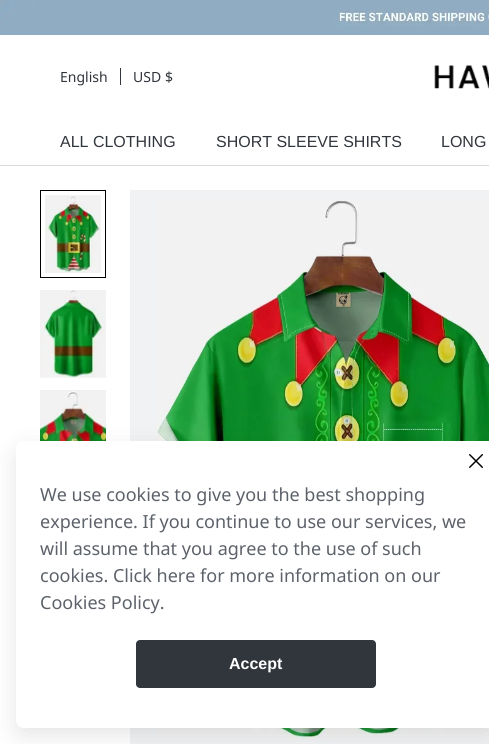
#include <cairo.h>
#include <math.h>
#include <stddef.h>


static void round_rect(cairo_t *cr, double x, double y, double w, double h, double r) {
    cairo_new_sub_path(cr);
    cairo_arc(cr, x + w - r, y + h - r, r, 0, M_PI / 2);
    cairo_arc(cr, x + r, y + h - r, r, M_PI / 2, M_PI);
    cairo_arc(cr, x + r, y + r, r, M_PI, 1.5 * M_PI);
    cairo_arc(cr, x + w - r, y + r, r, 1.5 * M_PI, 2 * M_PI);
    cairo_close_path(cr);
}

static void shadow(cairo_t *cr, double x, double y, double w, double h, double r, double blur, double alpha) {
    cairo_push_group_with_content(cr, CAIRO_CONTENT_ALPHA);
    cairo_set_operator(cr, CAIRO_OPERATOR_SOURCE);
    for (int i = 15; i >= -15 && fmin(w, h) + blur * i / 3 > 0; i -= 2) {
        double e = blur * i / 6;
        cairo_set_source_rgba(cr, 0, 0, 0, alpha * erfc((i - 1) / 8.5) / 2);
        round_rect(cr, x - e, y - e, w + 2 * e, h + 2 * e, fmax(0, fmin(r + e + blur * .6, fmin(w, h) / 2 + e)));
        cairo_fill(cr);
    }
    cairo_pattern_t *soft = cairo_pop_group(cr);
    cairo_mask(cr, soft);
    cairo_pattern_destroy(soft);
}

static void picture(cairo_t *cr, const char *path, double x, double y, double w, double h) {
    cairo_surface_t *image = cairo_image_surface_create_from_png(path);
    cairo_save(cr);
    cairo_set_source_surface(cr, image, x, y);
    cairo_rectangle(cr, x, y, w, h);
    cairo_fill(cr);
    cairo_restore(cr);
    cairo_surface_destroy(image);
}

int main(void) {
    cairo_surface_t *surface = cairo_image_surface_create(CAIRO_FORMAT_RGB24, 489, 744);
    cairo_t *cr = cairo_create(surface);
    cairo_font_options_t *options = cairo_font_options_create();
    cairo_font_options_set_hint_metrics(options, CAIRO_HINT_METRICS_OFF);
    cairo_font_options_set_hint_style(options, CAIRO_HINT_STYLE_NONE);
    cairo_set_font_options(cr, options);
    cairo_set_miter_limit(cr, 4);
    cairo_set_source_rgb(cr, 1, 1, 1);
    cairo_paint(cr);
    picture(cr, "img1.png", 0, 0, 489, 35);
    cairo_set_source_rgb(cr, 0.851, 0.851, 0.851);
    cairo_rectangle(cr, 0, 165, 489, 1);
    cairo_fill(cr);
    cairo_set_source_rgb(cr, 0.192, 0.208, 0.235);
    cairo_rectangle(cr, 120, 68, 1, 17);
    cairo_fill(cr);
    cairo_select_font_face(cr, "Noto Sans", CAIRO_FONT_SLANT_NORMAL, CAIRO_FONT_WEIGHT_NORMAL);
    cairo_set_font_size(cr, 14);
    cairo_move_to(cr, 60, 82);
    cairo_show_text(cr, "English");
    cairo_move_to(cr, 133, 82);
    cairo_show_text(cr, "USD");
    cairo_move_to(cr, 165, 82);
    cairo_show_text(cr, "$");
    picture(cr, "img2.png", 434, 65, 55, 24);
    cairo_select_font_face(cr, "Liberation Sans", CAIRO_FONT_SLANT_NORMAL, CAIRO_FONT_WEIGHT_NORMAL);
    cairo_set_font_size(cr, 16);
    cairo_move_to(cr, 60, 147);
    cairo_show_text(cr, "ALL CLOTHING");
    cairo_move_to(cr, 216, 147);
    cairo_show_text(cr, "SHORT SLEEVE SHIRTS");
    cairo_move_to(cr, 441, 147);
    cairo_show_text(cr, "LONG");
    cairo_rectangle(cr, 40.5, 190.5, 65, 87);
    cairo_set_source_rgb(cr, 0, 0, 0);
    cairo_set_line_width(cr, 1);
    cairo_stroke(cr);
    picture(cr, "img3.png", 45, 195, 56, 78);
    picture(cr, "img4.png", 40, 290, 66, 88);
    picture(cr, "img5.png", 40, 390, 66, 51);
    cairo_set_source_rgb(cr, 0.945, 0.949, 0.953);
    cairo_rectangle(cr, 130, 190, 359, 554);
    cairo_fill(cr);
    picture(cr, "img6.png", 156, 199, 333, 540);
    cairo_set_source_rgb(cr, 0, 0, 0);
    shadow(cr, 16, 449, 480, 287, 8, 12, 0.1);
    cairo_set_source_rgb(cr, 1, 1, 1);
    round_rect(cr, 16, 441, 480, 287, 8);
    cairo_fill(cr);
    cairo_new_path(cr);
    cairo_move_to(cr, 24, 441);
    cairo_line_to(cr, 488, 441);
    cairo_curve_to(cr, 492.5, 441, 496, 444.5, 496, 449);
    cairo_line_to(cr, 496, 481);
    cairo_line_to(cr, 16, 481);
    cairo_line_to(cr, 16, 449);
    cairo_curve_to(cr, 16, 444.5, 19.5, 441, 24, 441);
    cairo_close_path(cr);
    cairo_fill(cr);
    picture(cr, "img7.png", 469, 454, 14, 14);
    cairo_select_font_face(cr, "Noto Sans", CAIRO_FONT_SLANT_NORMAL, CAIRO_FONT_WEIGHT_NORMAL);
    cairo_set_font_size(cr, 18);
    cairo_set_source_rgb(cr, 0.365, 0.384, 0.416);
    cairo_move_to(cr, 40, 501);
    cairo_show_text(cr, "We use cookies to give you the best shopping");
    cairo_move_to(cr, 40, 528);
    cairo_show_text(cr, "experience. If you continue to use our services, we");
    cairo_move_to(cr, 40, 555);
    cairo_show_text(cr, "will assume that you agree to the use of such");
    cairo_move_to(cr, 40, 582);
    cairo_show_text(cr, "cookies. Click here for more information on our");
    cairo_move_to(cr, 40, 609);
    cairo_show_text(cr, "Cookies Policy.");
    cairo_set_source_rgb(cr, 0.192, 0.208, 0.235);
    round_rect(cr, 136, 640, 240, 48, 4);
    cairo_fill(cr);
    cairo_select_font_face(cr, "Liberation Sans", CAIRO_FONT_SLANT_NORMAL, CAIRO_FONT_WEIGHT_BOLD);
    cairo_set_font_size(cr, 16);
    cairo_set_source_rgb(cr, 1, 1, 1);
    cairo_move_to(cr, 229, 669);
    cairo_show_text(cr, "Accept");
    cairo_surface_write_to_png(surface, "page.png");
    cairo_font_options_destroy(options);
    cairo_destroy(cr);
    cairo_surface_destroy(surface);
    return 0;
}
